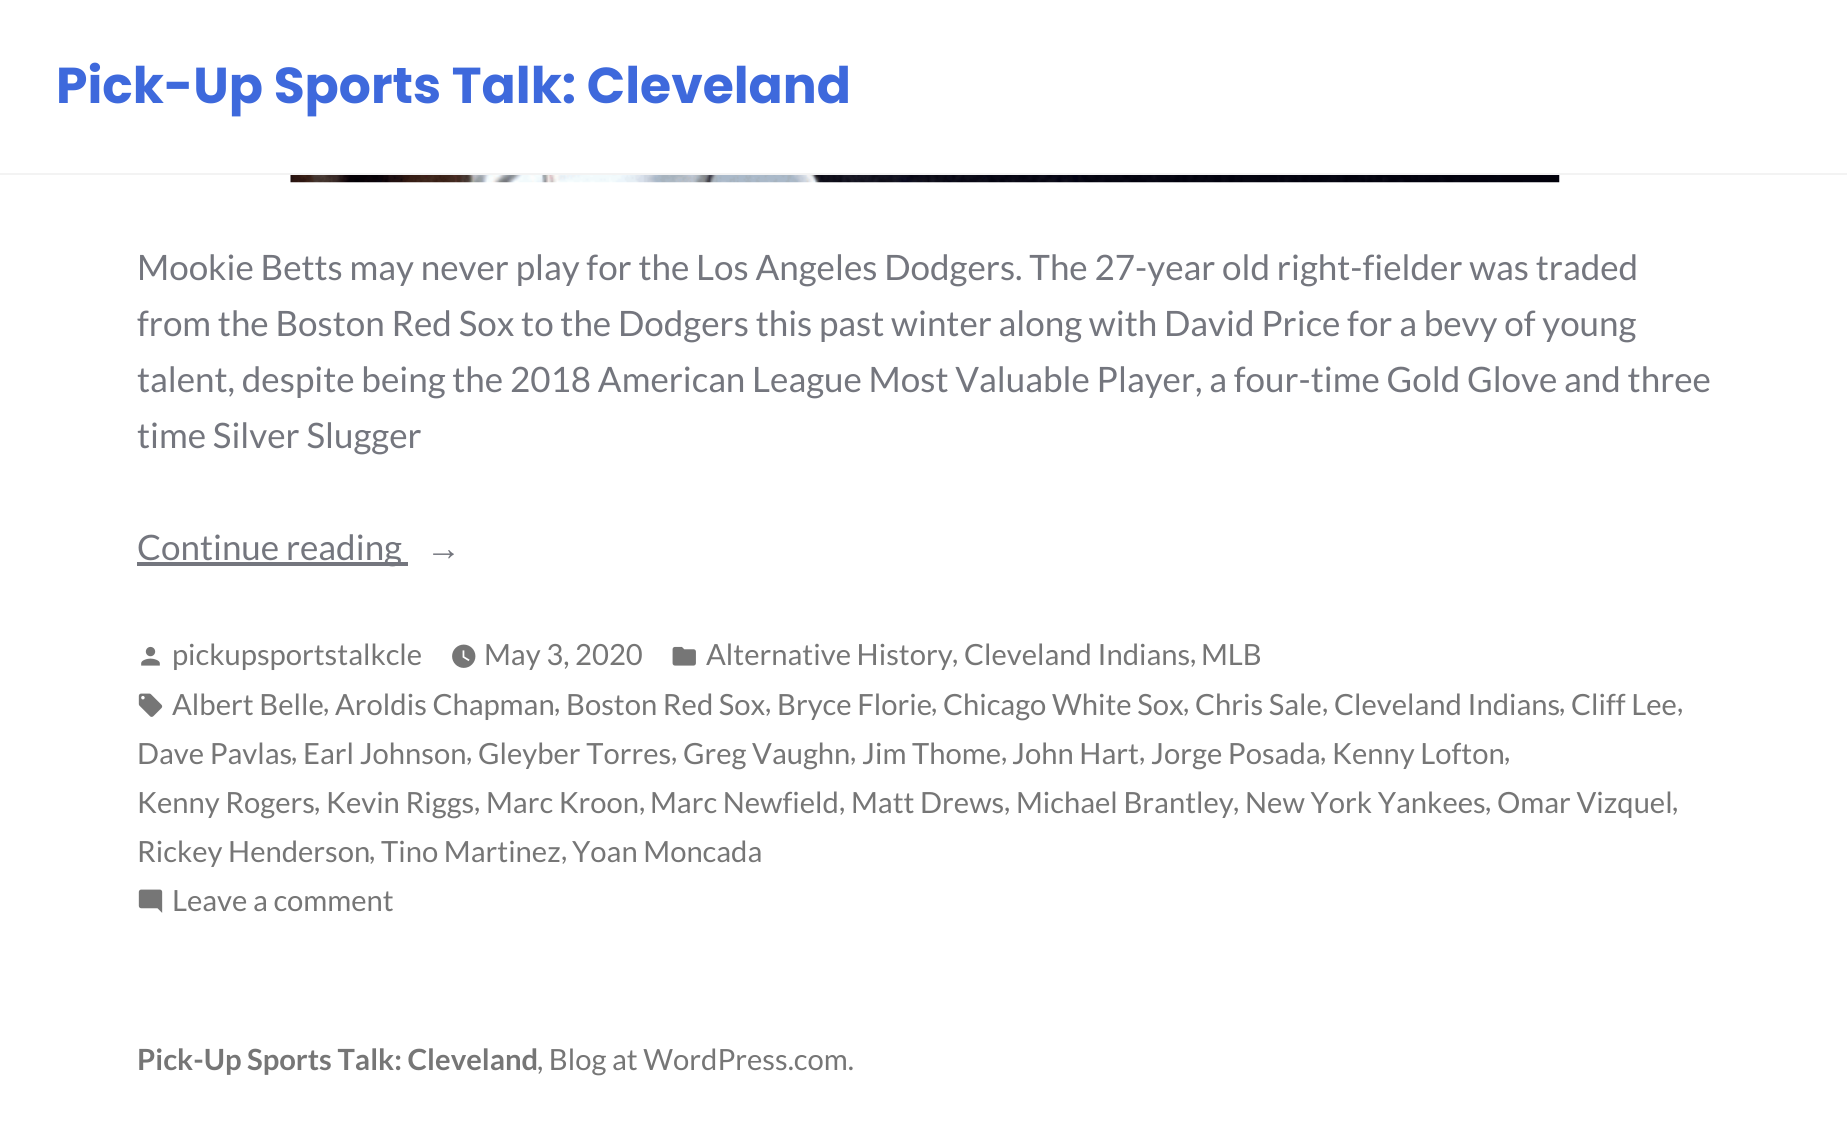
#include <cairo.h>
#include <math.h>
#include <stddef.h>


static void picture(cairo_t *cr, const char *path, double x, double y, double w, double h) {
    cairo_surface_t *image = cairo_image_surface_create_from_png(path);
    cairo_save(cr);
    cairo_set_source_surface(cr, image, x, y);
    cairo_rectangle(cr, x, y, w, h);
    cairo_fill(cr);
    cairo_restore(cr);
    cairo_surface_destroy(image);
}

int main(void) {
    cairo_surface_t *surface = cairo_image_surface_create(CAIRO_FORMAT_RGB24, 1847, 1124);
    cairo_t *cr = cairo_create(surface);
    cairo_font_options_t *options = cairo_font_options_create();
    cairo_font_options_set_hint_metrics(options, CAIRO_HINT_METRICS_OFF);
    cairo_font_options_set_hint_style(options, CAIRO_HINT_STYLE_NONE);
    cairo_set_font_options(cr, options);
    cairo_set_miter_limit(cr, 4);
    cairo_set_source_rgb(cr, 1, 1, 1);
    cairo_paint(cr);
    cairo_set_source_rgb(cr, 0.953, 0.953, 0.953);
    cairo_rectangle(cr, 0, 173, 1847, 2);
    cairo_fill(cr);
    cairo_select_font_face(cr, "Poppins", CAIRO_FONT_SLANT_NORMAL, CAIRO_FONT_WEIGHT_BOLD);
    cairo_set_font_size(cr, 50.4);
    cairo_set_source_rgb(cr, 0.243, 0.412, 0.863);
    cairo_move_to(cr, 56, 103);
    cairo_show_text(cr, "Pick-Up Sports Talk: Cleveland");
    picture(cr, "img1.png", 290, 175, 1270, 8);
    cairo_select_font_face(cr, "Lato", CAIRO_FONT_SLANT_NORMAL, CAIRO_FONT_WEIGHT_NORMAL);
    cairo_set_font_size(cr, 35);
    cairo_set_source_rgb(cr, 0.455, 0.463, 0.494);
    cairo_move_to(cr, 137, 280);
    cairo_show_text(cr, "Mookie Betts may never play for the Los Angeles Dodgers. The 27-year old right-fielder was traded");
    cairo_move_to(cr, 137, 336);
    cairo_show_text(cr, "from the Boston Red Sox to the Dodgers this past winter along with David Price for a bevy of young");
    cairo_move_to(cr, 137, 392);
    cairo_show_text(cr, "talent, despite being the 2018 American League Most Valuable Player, a four-time Gold Glove and three");
    cairo_move_to(cr, 137, 448);
    cairo_show_text(cr, "time Silver Slugger");
    cairo_rectangle(cr, 137, 562, 271, 4);
    cairo_fill(cr);
    cairo_move_to(cr, 137, 560);
    cairo_show_text(cr, "Continue reading");
    cairo_select_font_face(cr, "Liberation Sans", CAIRO_FONT_SLANT_NORMAL, CAIRO_FONT_WEIGHT_NORMAL);
    cairo_move_to(cr, 426, 560);
    cairo_show_text(cr, "→");
    picture(cr, "img2.png", 141, 646, 19, 20);
    cairo_select_font_face(cr, "Lato", CAIRO_FONT_SLANT_NORMAL, CAIRO_FONT_WEIGHT_NORMAL);
    cairo_set_font_size(cr, 29.2);
    cairo_set_source_rgb(cr, 0.463, 0.463, 0.463);
    cairo_move_to(cr, 172, 665);
    cairo_show_text(cr, "pickupsportstalkcle");
    picture(cr, "img3.png", 452, 644, 24, 24);
    cairo_move_to(cr, 484, 665);
    cairo_show_text(cr, "May 3, 2020");
    picture(cr, "img4.png", 672, 646, 24, 20);
    cairo_move_to(cr, 706, 665);
    cairo_show_text(cr, "Alternative History");
    cairo_move_to(cr, 952, 663);
    cairo_show_text(cr, ",");
    cairo_move_to(cr, 964, 665);
    cairo_show_text(cr, "Cleveland Indians");
    cairo_move_to(cr, 1190, 663);
    cairo_show_text(cr, ",");
    cairo_move_to(cr, 1201, 665);
    cairo_show_text(cr, "MLB");
    picture(cr, "img5.png", 138, 693, 25, 24);
    cairo_move_to(cr, 172, 715);
    cairo_show_text(cr, "Albert Belle");
    cairo_move_to(cr, 323, 712);
    cairo_show_text(cr, ",");
    cairo_move_to(cr, 335, 715);
    cairo_show_text(cr, "Aroldis Chapman");
    cairo_move_to(cr, 554, 712);
    cairo_show_text(cr, ",");
    cairo_move_to(cr, 566, 715);
    cairo_show_text(cr, "Boston Red Sox");
    cairo_move_to(cr, 765, 712);
    cairo_show_text(cr, ",");
    cairo_move_to(cr, 777, 715);
    cairo_show_text(cr, "Bryce Florie");
    cairo_move_to(cr, 931, 712);
    cairo_show_text(cr, ",");
    cairo_move_to(cr, 943, 715);
    cairo_show_text(cr, "Chicago White Sox");
    cairo_move_to(cr, 1183, 712);
    cairo_show_text(cr, ",");
    cairo_move_to(cr, 1195, 715);
    cairo_show_text(cr, "Chris Sale");
    cairo_move_to(cr, 1322, 712);
    cairo_show_text(cr, ",");
    cairo_move_to(cr, 1334, 715);
    cairo_show_text(cr, "Cleveland Indians");
    cairo_move_to(cr, 1559, 712);
    cairo_show_text(cr, ",");
    cairo_move_to(cr, 1571, 715);
    cairo_show_text(cr, "Cliff Lee");
    cairo_move_to(cr, 1677, 712);
    cairo_show_text(cr, ",");
    cairo_move_to(cr, 137, 764);
    cairo_show_text(cr, "Dave Pavlas");
    cairo_move_to(cr, 291, 761);
    cairo_show_text(cr, ",");
    cairo_move_to(cr, 303, 764);
    cairo_show_text(cr, "Earl Johnson");
    cairo_move_to(cr, 466, 761);
    cairo_show_text(cr, ",");
    cairo_move_to(cr, 478, 764);
    cairo_show_text(cr, "Gleyber Torres");
    cairo_move_to(cr, 671, 761);
    cairo_show_text(cr, ",");
    cairo_move_to(cr, 683, 764);
    cairo_show_text(cr, "Greg Vaughn");
    cairo_move_to(cr, 850, 761);
    cairo_show_text(cr, ",");
    cairo_move_to(cr, 862, 764);
    cairo_show_text(cr, "Jim Thome");
    cairo_move_to(cr, 1001, 761);
    cairo_show_text(cr, ",");
    cairo_move_to(cr, 1012, 764);
    cairo_show_text(cr, "John Hart");
    cairo_move_to(cr, 1139, 761);
    cairo_show_text(cr, ",");
    cairo_move_to(cr, 1151, 764);
    cairo_show_text(cr, "Jorge Posada");
    cairo_move_to(cr, 1320, 761);
    cairo_show_text(cr, ",");
    cairo_move_to(cr, 1332, 764);
    cairo_show_text(cr, "Kenny Lofton");
    cairo_move_to(cr, 1504, 761);
    cairo_show_text(cr, ",");
    cairo_move_to(cr, 137, 813);
    cairo_show_text(cr, "Kenny Rogers");
    cairo_move_to(cr, 314, 811);
    cairo_show_text(cr, ",");
    cairo_move_to(cr, 326, 813);
    cairo_show_text(cr, "Kevin Riggs");
    cairo_move_to(cr, 474, 811);
    cairo_show_text(cr, ",");
    cairo_move_to(cr, 486, 813);
    cairo_show_text(cr, "Marc Kroon");
    cairo_move_to(cr, 639, 811);
    cairo_show_text(cr, ",");
    cairo_move_to(cr, 650, 813);
    cairo_show_text(cr, "Marc Newfield");
    cairo_move_to(cr, 839, 811);
    cairo_show_text(cr, ",");
    cairo_move_to(cr, 851, 813);
    cairo_show_text(cr, "Matt Drews");
    cairo_move_to(cr, 1004, 811);
    cairo_show_text(cr, ",");
    cairo_move_to(cr, 1016, 813);
    cairo_show_text(cr, "Michael Brantley");
    cairo_move_to(cr, 1233, 811);
    cairo_show_text(cr, ",");
    cairo_move_to(cr, 1245, 813);
    cairo_show_text(cr, "New York Yankees");
    cairo_move_to(cr, 1485, 811);
    cairo_show_text(cr, ",");
    cairo_move_to(cr, 1497, 813);
    cairo_show_text(cr, "Omar Vizquel");
    cairo_move_to(cr, 1672, 811);
    cairo_show_text(cr, ",");
    cairo_move_to(cr, 137, 862);
    cairo_show_text(cr, "Rickey Henderson");
    cairo_move_to(cr, 369, 860);
    cairo_show_text(cr, ",");
    cairo_move_to(cr, 381, 862);
    cairo_show_text(cr, "Tino Martinez");
    cairo_move_to(cr, 561, 860);
    cairo_show_text(cr, ",");
    cairo_move_to(cr, 572, 862);
    cairo_show_text(cr, "Yoan Moncada");
    picture(cr, "img6.png", 138, 889, 25, 24);
    cairo_move_to(cr, 172, 911);
    cairo_show_text(cr, "Leave a comment");
    cairo_select_font_face(cr, "Lato", CAIRO_FONT_SLANT_NORMAL, CAIRO_FONT_WEIGHT_BOLD);
    cairo_move_to(cr, 137, 1070);
    cairo_show_text(cr, "Pick-Up Sports Talk: Cleveland");
    cairo_select_font_face(cr, "Lato", CAIRO_FONT_SLANT_NORMAL, CAIRO_FONT_WEIGHT_NORMAL);
    cairo_move_to(cr, 537, 1070);
    cairo_show_text(cr, ", Blog at WordPress.com.");
    cairo_surface_write_to_png(surface, "page.png");
    cairo_font_options_destroy(options);
    cairo_destroy(cr);
    cairo_surface_destroy(surface);
    return 0;
}
